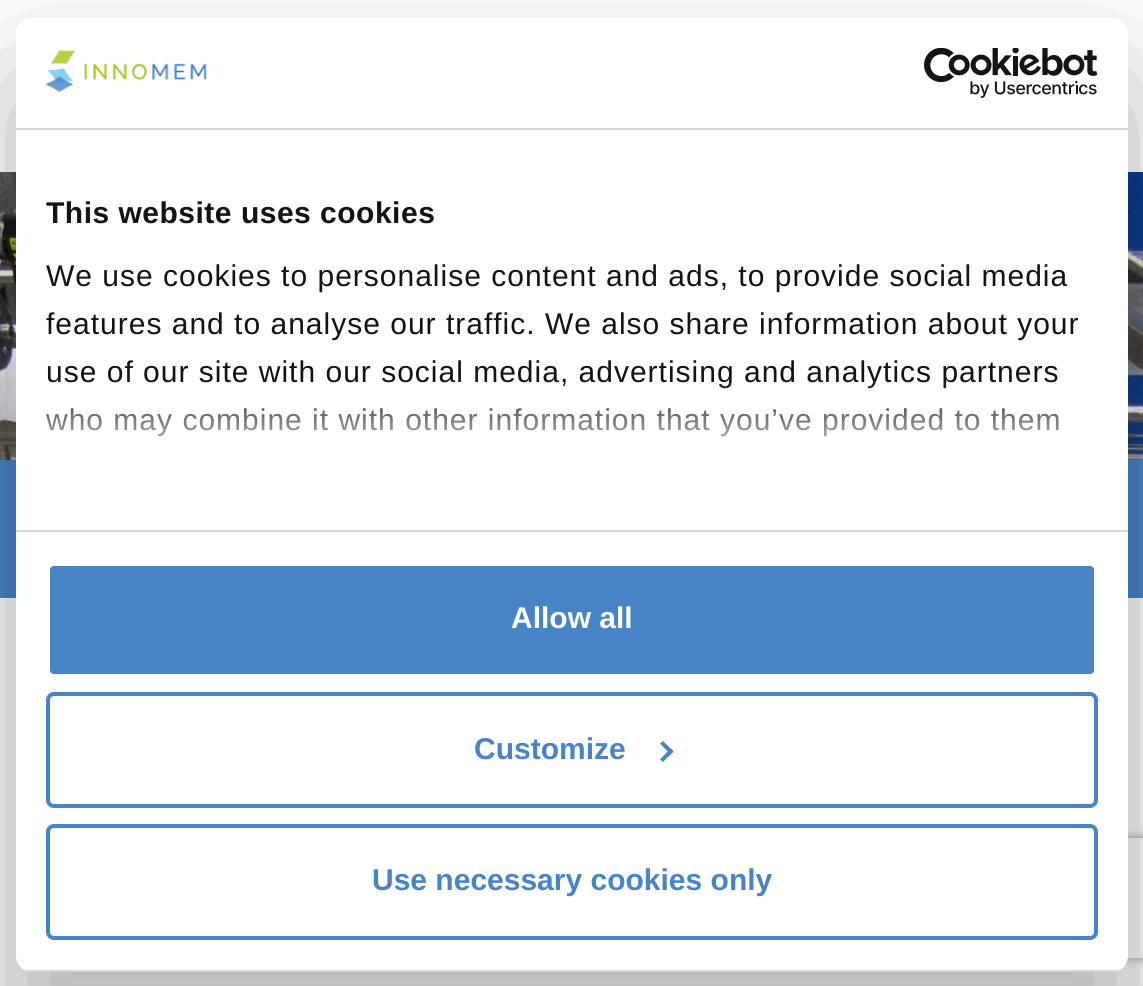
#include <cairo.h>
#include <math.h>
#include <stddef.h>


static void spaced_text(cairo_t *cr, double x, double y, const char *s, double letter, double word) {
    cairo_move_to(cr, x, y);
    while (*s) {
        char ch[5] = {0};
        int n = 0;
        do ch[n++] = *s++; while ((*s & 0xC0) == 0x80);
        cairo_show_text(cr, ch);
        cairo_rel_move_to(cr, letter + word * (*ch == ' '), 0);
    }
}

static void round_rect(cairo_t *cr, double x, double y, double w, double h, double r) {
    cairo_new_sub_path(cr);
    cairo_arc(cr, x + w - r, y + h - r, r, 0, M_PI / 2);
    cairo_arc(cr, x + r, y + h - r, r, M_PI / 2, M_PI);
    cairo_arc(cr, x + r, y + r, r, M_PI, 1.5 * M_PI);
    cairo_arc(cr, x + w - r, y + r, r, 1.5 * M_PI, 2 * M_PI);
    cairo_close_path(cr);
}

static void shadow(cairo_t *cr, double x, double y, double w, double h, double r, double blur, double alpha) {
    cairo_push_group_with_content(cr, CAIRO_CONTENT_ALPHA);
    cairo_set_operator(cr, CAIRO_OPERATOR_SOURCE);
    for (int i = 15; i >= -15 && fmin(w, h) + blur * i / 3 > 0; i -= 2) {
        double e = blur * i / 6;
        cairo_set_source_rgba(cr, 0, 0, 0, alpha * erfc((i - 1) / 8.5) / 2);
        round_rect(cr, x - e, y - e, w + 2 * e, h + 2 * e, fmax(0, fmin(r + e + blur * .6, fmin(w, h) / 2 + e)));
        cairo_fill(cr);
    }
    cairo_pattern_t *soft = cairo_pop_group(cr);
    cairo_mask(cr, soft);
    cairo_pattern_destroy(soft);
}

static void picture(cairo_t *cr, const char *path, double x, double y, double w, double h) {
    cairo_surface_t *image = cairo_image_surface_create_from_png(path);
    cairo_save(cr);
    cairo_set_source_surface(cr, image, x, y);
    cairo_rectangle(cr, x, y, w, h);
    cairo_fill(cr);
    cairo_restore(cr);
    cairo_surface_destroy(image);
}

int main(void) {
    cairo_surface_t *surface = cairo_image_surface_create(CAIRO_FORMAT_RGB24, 1143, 986);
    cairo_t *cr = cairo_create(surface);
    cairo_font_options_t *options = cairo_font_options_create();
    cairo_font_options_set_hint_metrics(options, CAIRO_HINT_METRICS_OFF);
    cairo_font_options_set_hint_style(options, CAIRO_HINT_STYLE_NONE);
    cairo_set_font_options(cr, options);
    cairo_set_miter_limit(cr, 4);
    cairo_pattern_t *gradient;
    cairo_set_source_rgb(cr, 1, 1, 1);
    cairo_paint(cr);
    picture(cr, "img1.png", 0, 172, 1143, 288);
    cairo_set_source_rgb(cr, 0.275, 0.518, 0.773);
    cairo_rectangle(cr, 0, 460, 1143, 138);
    cairo_fill(cr);
    cairo_set_source_rgb(cr, 0.976, 0.976, 0.976);
    cairo_rectangle(cr, 0, 598, 1143, 388);
    cairo_fill(cr);
    cairo_set_source_rgb(cr, 0, 0, 0);
    shadow(cr, 16, 82, 1112, 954, 16, 68, 0.3);
    cairo_save(cr);
    cairo_set_fill_rule(cr, CAIRO_FILL_RULE_EVEN_ODD);
    cairo_new_path(cr);
    cairo_move_to(cr, 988, 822);
    cairo_line_to(cr, 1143, 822);
    cairo_line_to(cr, 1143, 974);
    cairo_line_to(cr, 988, 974);
    cairo_close_path(cr);
    cairo_move_to(cr, 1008, 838);
    cairo_line_to(cr, 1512, 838);
    cairo_curve_to(cr, 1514, 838, 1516, 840, 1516, 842);
    cairo_line_to(cr, 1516, 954);
    cairo_curve_to(cr, 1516, 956, 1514, 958, 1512, 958);
    cairo_line_to(cr, 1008, 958);
    cairo_curve_to(cr, 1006, 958, 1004, 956, 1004, 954);
    cairo_line_to(cr, 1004, 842);
    cairo_curve_to(cr, 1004, 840, 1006, 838, 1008, 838);
    cairo_close_path(cr);
    cairo_clip(cr);
    cairo_set_source_rgb(cr, 0.502, 0.502, 0.502);
    shadow(cr, 1004, 838, 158, 120, 4, 5, 1);
    cairo_restore(cr);
    cairo_set_source_rgb(cr, 1, 1, 1);
    round_rect(cr, 16, 18, 1112, 954, 16);
    cairo_fill(cr);
    cairo_set_source_rgb(cr, 0.839, 0.839, 0.839);
    cairo_rectangle(cr, 16, 128, 1112, 2);
    cairo_fill(cr);
    picture(cr, "img2.png", 46, 50, 161, 43);
    picture(cr, "img3.png", 924, 48, 174, 50);
    cairo_rectangle(cr, 16, 530, 1112, 2);
    cairo_fill(cr);
    cairo_select_font_face(cr, "Liberation Sans", CAIRO_FONT_SLANT_NORMAL, CAIRO_FONT_WEIGHT_BOLD);
    cairo_set_font_size(cr, 30);
    cairo_set_source_rgb(cr, 0.078, 0.078, 0.078);
    spaced_text(cr, 46, 223, "This website uses cookies", 0.5, 0);
    cairo_select_font_face(cr, "Liberation Sans", CAIRO_FONT_SLANT_NORMAL, CAIRO_FONT_WEIGHT_NORMAL);
    spaced_text(cr, 46, 286, "We use cookies to personalise content and ads, to provide social media", 1, 0);
    spaced_text(cr, 46, 334, "features and to analyse our traffic. We also share information about your", 1, 0);
    spaced_text(cr, 46, 382, "use of our site with our social media, advertising and analytics partners", 1, 0);
    spaced_text(cr, 46, 430, "who may combine it with other information that you’ve provided to them", 1, 0);
    gradient = cairo_pattern_create_linear(559, 529, 559, 379);
    cairo_pattern_add_color_stop_rgba(gradient, 0, 1, 1, 1, 1);
    cairo_pattern_add_color_stop_rgba(gradient, 0.5, 1, 1, 1, 0.8);
    cairo_pattern_add_color_stop_rgba(gradient, 1, 1, 1, 1, 0);
    cairo_set_source(cr, gradient);
    cairo_pattern_destroy(gradient);
    cairo_rectangle(cr, 46, 381, 1013, 56);
    cairo_fill(cr);
    cairo_save(cr);
    round_rect(cr, 16, 18, 1112, 954, 16);
    cairo_clip(cr);
    cairo_set_source_rgb(cr, 0.839, 0.839, 0.839);
    cairo_rectangle(cr, 16, 970, 1112, 2);
    cairo_fill(cr);
    cairo_restore(cr);
    cairo_set_source_rgb(cr, 0.275, 0.518, 0.773);
    round_rect(cr, 48, 564, 1048, 112, 6);
    cairo_fill_preserve(cr);
    cairo_set_source_rgb(cr, 1, 1, 1);
    cairo_set_line_width(cr, 4);
    cairo_stroke(cr);
    cairo_select_font_face(cr, "Liberation Sans", CAIRO_FONT_SLANT_NORMAL, CAIRO_FONT_WEIGHT_BOLD);
    cairo_move_to(cr, 511, 628);
    cairo_show_text(cr, "Allow all");
    round_rect(cr, 48, 694, 1048, 112, 6);
    cairo_set_source_rgb(cr, 0.275, 0.518, 0.773);
    cairo_stroke(cr);
    cairo_move_to(cr, 474, 759);
    cairo_show_text(cr, "Customize");
    cairo_new_path(cr);
    cairo_move_to(cr, 663, 741);
    cairo_line_to(cr, 673.5, 751.5);
    cairo_line_to(cr, 670.5, 754.5);
    cairo_line_to(cr, 660, 743.5);
    cairo_close_path(cr);
    cairo_fill(cr);
    cairo_new_path(cr);
    cairo_move_to(cr, 670.5, 748.5);
    cairo_line_to(cr, 673.5, 751.5);
    cairo_line_to(cr, 663, 762);
    cairo_line_to(cr, 660, 759.5);
    cairo_close_path(cr);
    cairo_fill(cr);
    round_rect(cr, 48, 826, 1048, 112, 6);
    cairo_stroke(cr);
    cairo_move_to(cr, 372, 890);
    cairo_show_text(cr, "Use necessary cookies only");
    cairo_surface_write_to_png(surface, "page.png");
    cairo_font_options_destroy(options);
    cairo_destroy(cr);
    cairo_surface_destroy(surface);
    return 0;
}
